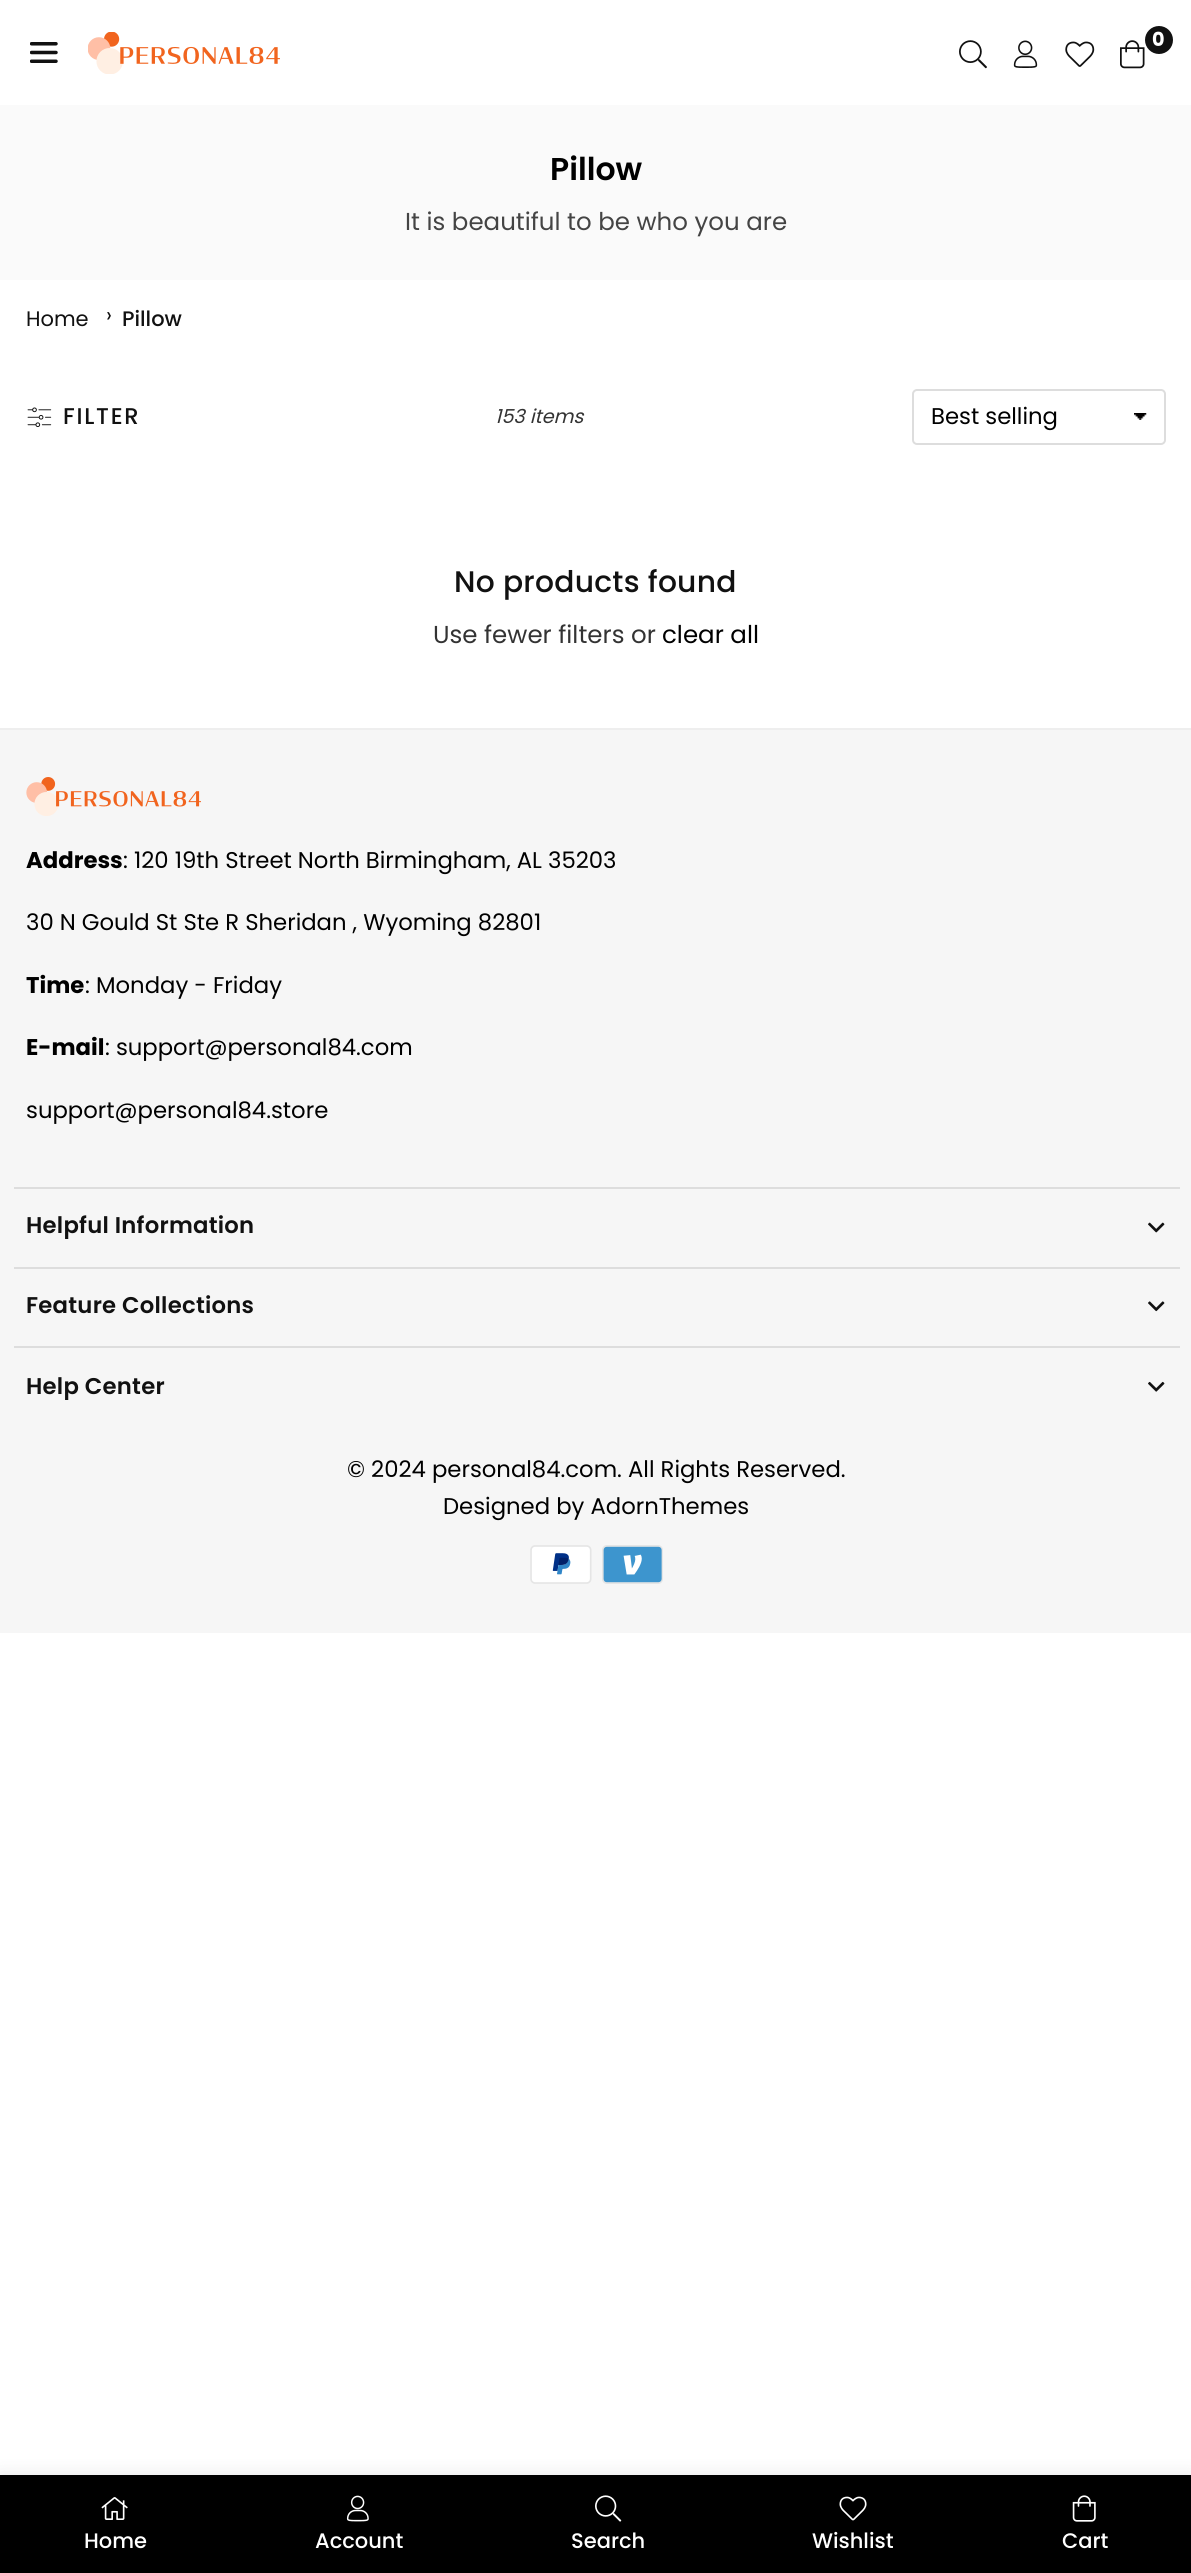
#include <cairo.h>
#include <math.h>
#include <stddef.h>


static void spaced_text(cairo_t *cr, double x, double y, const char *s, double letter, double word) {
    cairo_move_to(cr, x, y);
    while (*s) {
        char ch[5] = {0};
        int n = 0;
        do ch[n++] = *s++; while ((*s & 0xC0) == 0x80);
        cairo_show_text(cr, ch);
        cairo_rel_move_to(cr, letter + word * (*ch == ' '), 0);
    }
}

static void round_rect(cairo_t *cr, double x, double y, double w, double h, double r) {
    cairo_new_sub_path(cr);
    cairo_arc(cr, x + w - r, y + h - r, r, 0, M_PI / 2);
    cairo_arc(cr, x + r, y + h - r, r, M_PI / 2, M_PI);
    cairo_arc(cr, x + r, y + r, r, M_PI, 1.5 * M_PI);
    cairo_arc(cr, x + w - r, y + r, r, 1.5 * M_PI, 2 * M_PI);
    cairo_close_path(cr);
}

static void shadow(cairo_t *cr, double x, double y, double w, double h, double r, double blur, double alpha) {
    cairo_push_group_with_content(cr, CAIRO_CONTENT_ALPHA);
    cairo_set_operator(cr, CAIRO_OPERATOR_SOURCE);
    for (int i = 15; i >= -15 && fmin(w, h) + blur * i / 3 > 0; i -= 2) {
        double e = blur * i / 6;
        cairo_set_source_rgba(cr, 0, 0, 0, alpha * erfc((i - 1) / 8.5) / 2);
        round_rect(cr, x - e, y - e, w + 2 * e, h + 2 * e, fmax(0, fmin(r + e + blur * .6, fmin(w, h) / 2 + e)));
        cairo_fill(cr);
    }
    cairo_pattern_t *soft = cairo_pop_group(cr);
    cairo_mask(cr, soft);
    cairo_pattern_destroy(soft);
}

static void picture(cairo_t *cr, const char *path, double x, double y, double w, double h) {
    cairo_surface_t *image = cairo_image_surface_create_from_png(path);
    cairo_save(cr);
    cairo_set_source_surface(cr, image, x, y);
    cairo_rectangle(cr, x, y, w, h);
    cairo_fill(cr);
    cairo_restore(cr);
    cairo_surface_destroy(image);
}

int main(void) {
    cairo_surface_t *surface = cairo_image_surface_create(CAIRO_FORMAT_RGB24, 1191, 2573);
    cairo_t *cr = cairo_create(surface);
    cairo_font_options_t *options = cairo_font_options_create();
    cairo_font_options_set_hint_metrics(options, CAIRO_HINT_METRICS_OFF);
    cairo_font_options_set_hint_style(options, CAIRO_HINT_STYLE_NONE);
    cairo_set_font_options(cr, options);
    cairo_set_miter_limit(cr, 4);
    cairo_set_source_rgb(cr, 1, 1, 1);
    cairo_paint(cr);
    picture(cr, "img1.png", 30, 42, 28, 21);
    picture(cr, "img2.png", 88, 32, 192, 42);
    cairo_set_source_rgb(cr, 0.067, 0.067, 0.067);
    cairo_arc(cr, 1159, 40, 14, 0, 2 * M_PI);
    cairo_fill(cr);
    cairo_select_font_face(cr, "Poppins", CAIRO_FONT_SLANT_NORMAL, CAIRO_FONT_WEIGHT_BOLD);
    cairo_set_font_size(cr, 19.25);
    cairo_set_source_rgb(cr, 1, 1, 1);
    cairo_move_to(cr, 1152, 46);
    cairo_show_text(cr, "0");
    picture(cr, "img3.png", 1120, 40, 25, 29);
    picture(cr, "img4.png", 959, 40, 28, 29);
    picture(cr, "img5.png", 1013, 40, 25, 28);
    picture(cr, "img6.png", 1065, 41, 30, 26);
    cairo_set_source_rgb(cr, 0.98, 0.98, 0.98);
    cairo_rectangle(cr, 0, 105, 1191, 175);
    cairo_fill(cr);
    cairo_select_font_face(cr, "Poppins SemiBold", CAIRO_FONT_SLANT_NORMAL, CAIRO_FONT_WEIGHT_NORMAL);
    cairo_set_font_size(cr, 31.5);
    cairo_set_source_rgb(cr, 0, 0, 0);
    cairo_move_to(cr, 550, 180);
    cairo_show_text(cr, "Pillow");
    cairo_select_font_face(cr, "Poppins", CAIRO_FONT_SLANT_NORMAL, CAIRO_FONT_WEIGHT_NORMAL);
    cairo_set_font_size(cr, 24.5);
    cairo_set_source_rgb(cr, 0.267, 0.267, 0.267);
    cairo_move_to(cr, 405, 230);
    cairo_show_text(cr, "It is beautiful to be who you are");
    cairo_set_font_size(cr, 21);
    cairo_set_source_rgb(cr, 0.067, 0.067, 0.067);
    cairo_move_to(cr, 26, 326);
    cairo_show_text(cr, "Home");
    cairo_move_to(cr, 106, 322);
    cairo_show_text(cr, "›");
    cairo_select_font_face(cr, "Poppins Medium", CAIRO_FONT_SLANT_NORMAL, CAIRO_FONT_WEIGHT_NORMAL);
    cairo_move_to(cr, 122, 326);
    cairo_show_text(cr, "Pillow");
    picture(cr, "img7.png", 27, 407, 25, 20);
    cairo_set_font_size(cr, 22.75);
    spaced_text(cr, 63, 424, "FILTER", 1.75, 0);
    cairo_select_font_face(cr, "Poppins", CAIRO_FONT_SLANT_ITALIC, CAIRO_FONT_WEIGHT_NORMAL);
    cairo_set_font_size(cr, 19.25);
    cairo_set_source_rgb(cr, 0.2, 0.2, 0.2);
    cairo_move_to(cr, 495, 423);
    cairo_show_text(cr, "153 items");
    picture(cr, "img8.png", 1134, 413, 13, 7);
    round_rect(cr, 913, 390, 252, 54, 4);
    cairo_set_source_rgb(cr, 0.867, 0.867, 0.867);
    cairo_stroke(cr);
    cairo_select_font_face(cr, "Poppins", CAIRO_FONT_SLANT_NORMAL, CAIRO_FONT_WEIGHT_NORMAL);
    cairo_set_font_size(cr, 22.75);
    cairo_set_source_rgb(cr, 0, 0, 0);
    cairo_move_to(cr, 931, 424);
    cairo_show_text(cr, "Best selling");
    cairo_select_font_face(cr, "Poppins Medium", CAIRO_FONT_SLANT_NORMAL, CAIRO_FONT_WEIGHT_NORMAL);
    cairo_set_font_size(cr, 29.75);
    cairo_set_source_rgb(cr, 0.067, 0.067, 0.067);
    spaced_text(cr, 454, 592, "No products found", 0.25, 0);
    cairo_select_font_face(cr, "Poppins", CAIRO_FONT_SLANT_NORMAL, CAIRO_FONT_WEIGHT_NORMAL);
    cairo_set_font_size(cr, 24.5);
    cairo_set_source_rgb(cr, 0.2, 0.2, 0.2);
    cairo_move_to(cr, 433, 643);
    cairo_show_text(cr, "Use fewer filters or");
    cairo_set_source_rgb(cr, 0, 0, 0);
    cairo_move_to(cr, 662, 643);
    cairo_show_text(cr, "clear all");
    cairo_set_source_rgb(cr, 0.961, 0.961, 0.961);
    cairo_rectangle(cr, 0, 730, 1191, 903);
    cairo_fill(cr);
    cairo_set_source_rgb(cr, 0.933, 0.933, 0.933);
    cairo_rectangle(cr, 0, 728, 1191, 2);
    cairo_fill(cr);
    picture(cr, "img9.png", 26, 777, 175, 39);
    cairo_select_font_face(cr, "Poppins", CAIRO_FONT_SLANT_NORMAL, CAIRO_FONT_WEIGHT_BOLD);
    cairo_set_font_size(cr, 22.75);
    cairo_set_source_rgb(cr, 0, 0, 0);
    cairo_move_to(cr, 26, 868);
    cairo_show_text(cr, "Address");
    cairo_select_font_face(cr, "Poppins", CAIRO_FONT_SLANT_NORMAL, CAIRO_FONT_WEIGHT_NORMAL);
    cairo_move_to(cr, 123, 868);
    cairo_show_text(cr, ": 120 19th Street North Birmingham, AL 35203");
    cairo_move_to(cr, 26, 930);
    cairo_show_text(cr, "30 N Gould St Ste R Sheridan , Wyoming 82801");
    cairo_select_font_face(cr, "Poppins", CAIRO_FONT_SLANT_NORMAL, CAIRO_FONT_WEIGHT_BOLD);
    cairo_move_to(cr, 26, 993);
    cairo_show_text(cr, "Time");
    cairo_select_font_face(cr, "Poppins", CAIRO_FONT_SLANT_NORMAL, CAIRO_FONT_WEIGHT_NORMAL);
    cairo_move_to(cr, 85, 993);
    cairo_show_text(cr, ": Monday - Friday");
    cairo_select_font_face(cr, "Poppins", CAIRO_FONT_SLANT_NORMAL, CAIRO_FONT_WEIGHT_BOLD);
    cairo_move_to(cr, 26, 1055);
    cairo_show_text(cr, "E-mail");
    cairo_select_font_face(cr, "Poppins", CAIRO_FONT_SLANT_NORMAL, CAIRO_FONT_WEIGHT_NORMAL);
    cairo_move_to(cr, 105, 1055);
    cairo_show_text(cr, ": support@personal84.com");
    cairo_move_to(cr, 26, 1118);
    cairo_show_text(cr, "support@personal84.store");
    cairo_set_source_rgb(cr, 0.867, 0.867, 0.867);
    cairo_rectangle(cr, 14, 1187, 1166, 2);
    cairo_fill(cr);
    cairo_select_font_face(cr, "Poppins SemiBold", CAIRO_FONT_SLANT_NORMAL, CAIRO_FONT_WEIGHT_NORMAL);
    cairo_set_source_rgb(cr, 0.067, 0.067, 0.067);
    spaced_text(cr, 26, 1233, "Helpful Information", 0.25, 0);
    picture(cr, "img10.png", 1148, 1222, 17, 11);
    cairo_set_source_rgb(cr, 0.867, 0.867, 0.867);
    cairo_rectangle(cr, 14, 1267, 1166, 2);
    cairo_fill(cr);
    cairo_set_source_rgb(cr, 0.067, 0.067, 0.067);
    spaced_text(cr, 26, 1313, "Feature Collections", 0.25, 0);
    picture(cr, "img11.png", 1148, 1301, 17, 11);
    cairo_set_source_rgb(cr, 0.867, 0.867, 0.867);
    cairo_rectangle(cr, 14, 1346, 1166, 2);
    cairo_fill(cr);
    cairo_set_source_rgb(cr, 0.067, 0.067, 0.067);
    spaced_text(cr, 26, 1394, "Help Center", 0.25, 0);
    picture(cr, "img12.png", 1148, 1381, 17, 11);
    cairo_select_font_face(cr, "Poppins", CAIRO_FONT_SLANT_NORMAL, CAIRO_FONT_WEIGHT_NORMAL);
    cairo_set_source_rgb(cr, 0, 0, 0);
    cairo_move_to(cr, 347, 1477);
    cairo_show_text(cr, "© 2024 personal84.com. All Rights Reserved.");
    cairo_move_to(cr, 443, 1514);
    cairo_show_text(cr, "Designed by AdornThemes");
    picture(cr, "img13.png", 530, 1545, 62, 39);
    picture(cr, "img14.png", 602, 1545, 61, 39);
    cairo_set_source_rgb(cr, 0, 0, 0);
    shadow(cr, 0, 2475, 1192, 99, 0, 9, 0.1);
    cairo_set_source_rgb(cr, 0, 0, 0);
    cairo_rectangle(cr, 0, 2475, 1191, 98);
    cairo_fill(cr);
    picture(cr, "img15.png", 101, 2497, 27, 23);
    cairo_select_font_face(cr, "Poppins Medium", CAIRO_FONT_SLANT_NORMAL, CAIRO_FONT_WEIGHT_NORMAL);
    cairo_set_font_size(cr, 21);
    cairo_set_source_rgb(cr, 1, 1, 1);
    cairo_move_to(cr, 84, 2548);
    cairo_show_text(cr, "Home");
    picture(cr, "img16.png", 346, 2495, 23, 27);
    cairo_move_to(cr, 315, 2548);
    cairo_show_text(cr, "Account");
    picture(cr, "img17.png", 595, 2495, 27, 27);
    cairo_move_to(cr, 571, 2548);
    cairo_show_text(cr, "Search");
    picture(cr, "img18.png", 839, 2496, 28, 25);
    cairo_move_to(cr, 812, 2548);
    cairo_show_text(cr, "Wishlist");
    picture(cr, "img19.png", 1072, 2495, 24, 27);
    cairo_move_to(cr, 1062, 2548);
    cairo_show_text(cr, "Cart");
    cairo_surface_write_to_png(surface, "page.png");
    cairo_font_options_destroy(options);
    cairo_destroy(cr);
    cairo_surface_destroy(surface);
    return 0;
}
